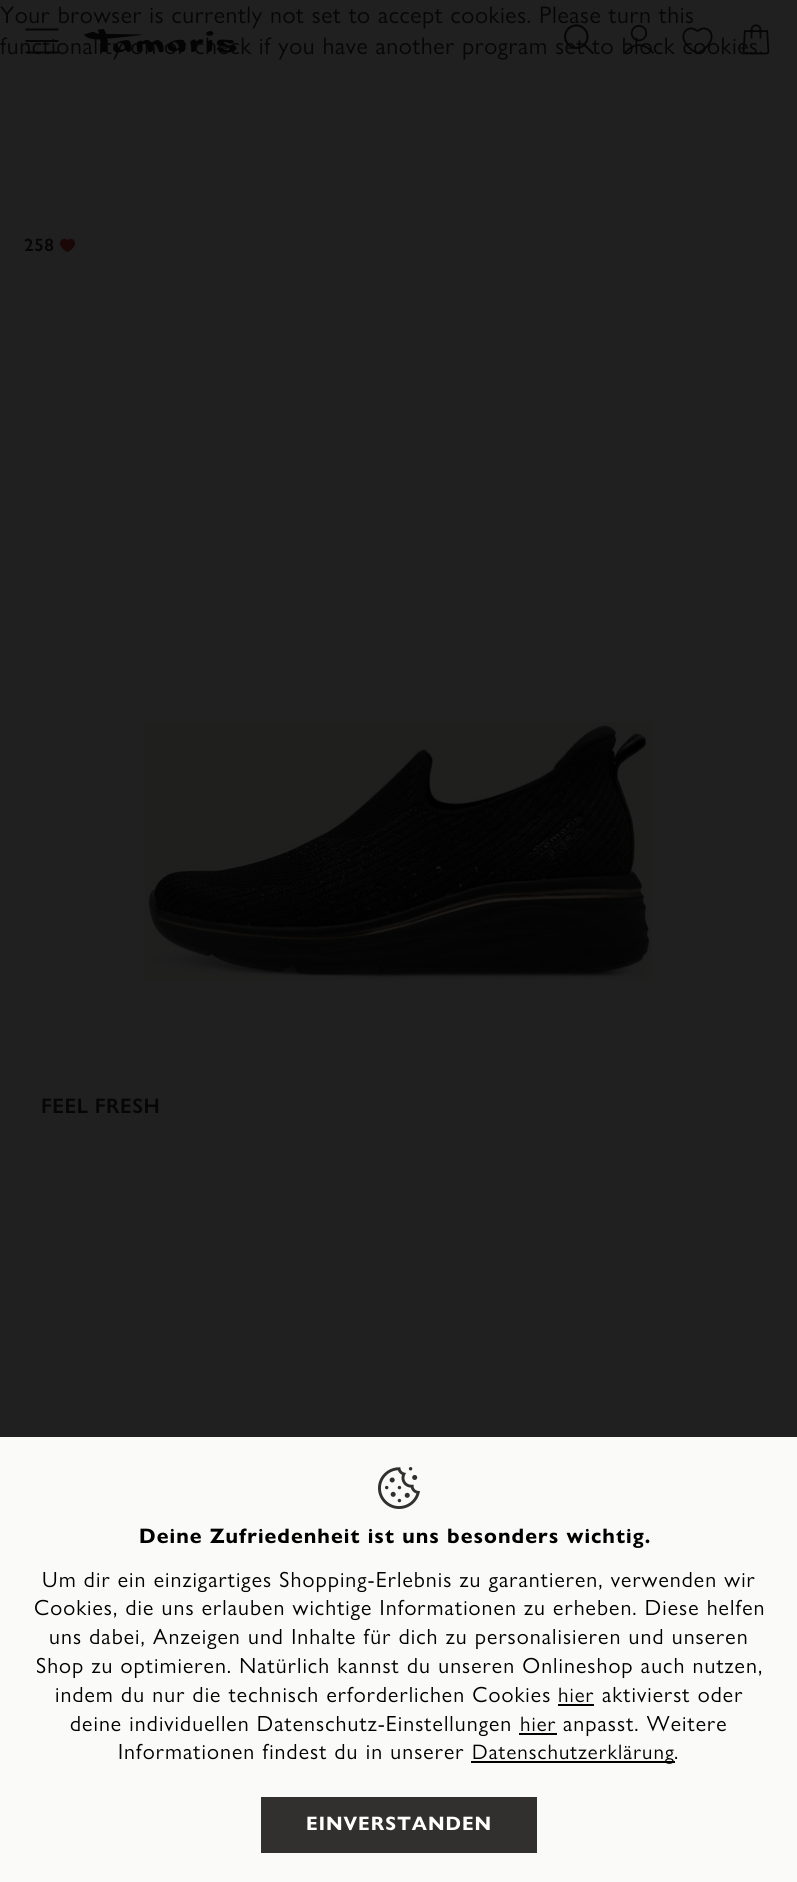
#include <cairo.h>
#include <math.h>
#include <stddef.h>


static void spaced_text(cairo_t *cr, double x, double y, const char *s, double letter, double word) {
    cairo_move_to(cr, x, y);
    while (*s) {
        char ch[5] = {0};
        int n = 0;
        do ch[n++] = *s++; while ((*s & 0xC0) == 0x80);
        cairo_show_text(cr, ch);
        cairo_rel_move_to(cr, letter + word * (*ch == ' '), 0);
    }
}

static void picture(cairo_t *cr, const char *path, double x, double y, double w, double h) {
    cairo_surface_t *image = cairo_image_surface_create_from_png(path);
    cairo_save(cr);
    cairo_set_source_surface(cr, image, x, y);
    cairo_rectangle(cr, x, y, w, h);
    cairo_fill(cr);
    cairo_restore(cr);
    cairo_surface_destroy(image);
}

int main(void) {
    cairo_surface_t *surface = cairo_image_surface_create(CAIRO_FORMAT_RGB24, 797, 1882);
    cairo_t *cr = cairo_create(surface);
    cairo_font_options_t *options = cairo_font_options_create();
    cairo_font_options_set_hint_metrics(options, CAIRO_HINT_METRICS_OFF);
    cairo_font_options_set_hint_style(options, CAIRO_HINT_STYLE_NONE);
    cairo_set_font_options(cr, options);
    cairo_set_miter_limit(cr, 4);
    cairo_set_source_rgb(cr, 0.125, 0.125, 0.125);
    cairo_paint(cr);
    cairo_select_font_face(cr, "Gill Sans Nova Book", CAIRO_FONT_SLANT_NORMAL, CAIRO_FONT_WEIGHT_NORMAL);
    cairo_set_font_size(cr, 24);
    cairo_set_source_rgb(cr, 0.027, 0.024, 0.024);
    spaced_text(cr, 0, 23, "Your browser is currently not set to accept cookies. Please turn this", 0.6, 0);
    spaced_text(cr, 0, 54, "functionality on or check if you have another program set to block cookies.", 0.6, 0);
    cairo_select_font_face(cr, "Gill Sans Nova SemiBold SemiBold", CAIRO_FONT_SLANT_NORMAL, CAIRO_FONT_WEIGHT_NORMAL);
    cairo_set_font_size(cr, 18);
    spaced_text(cr, 24, 251, "258", 0.6, 0);
    picture(cr, "img1.png", 60, 238, 15, 15);
    picture(cr, "img2.png", 145, 722, 507, 258);
    cairo_set_font_size(cr, 21);
    spaced_text(cr, 41, 1113, "FEEL FRESH", 0.5, 0);
    cairo_new_path(cr);
    cairo_move_to(cr, 25.5, 28.5);
    cairo_line_to(cr, 58.5, 28.5);
    cairo_line_to(cr, 58.5, 30.5);
    cairo_line_to(cr, 25.5, 30.5);
    cairo_close_path(cr);
    cairo_move_to(cr, 25.5, 40);
    cairo_line_to(cr, 58.5, 40);
    cairo_line_to(cr, 58.5, 42);
    cairo_line_to(cr, 25.5, 42);
    cairo_close_path(cr);
    cairo_move_to(cr, 25.5, 51.5);
    cairo_line_to(cr, 58.5, 51.5);
    cairo_line_to(cr, 58.5, 53.5);
    cairo_line_to(cr, 25.5, 53.5);
    cairo_close_path(cr);
    cairo_fill(cr);
    picture(cr, "img3.png", 84, 29, 153, 24);
    picture(cr, "img4.png", 564, 24, 30, 31);
    picture(cr, "img5.png", 624, 24, 30, 30);
    picture(cr, "img6.png", 682, 27, 31, 28);
    picture(cr, "img7.png", 742, 24, 28, 31);
    cairo_set_source_rgb(cr, 0.98, 0.98, 0.976);
    cairo_rectangle(cr, 0, 1437, 797, 445);
    cairo_fill(cr);
    picture(cr, "img8.png", 378, 1467, 42, 42);
    cairo_select_font_face(cr, "Gill Sans Nova Book", CAIRO_FONT_SLANT_NORMAL, CAIRO_FONT_WEIGHT_BOLD);
    cairo_set_source_rgb(cr, 0, 0, 0);
    spaced_text(cr, 139, 1543, "Deine Zufriedenheit ist uns besonders wichtig.", 1.05, 0);
    cairo_select_font_face(cr, "Gill Sans Nova Book", CAIRO_FONT_SLANT_NORMAL, CAIRO_FONT_WEIGHT_NORMAL);
    cairo_set_font_size(cr, 22);
    spaced_text(cr, 42, 1587, "Um dir ein einzigartiges Shopping-Erlebnis zu garantieren, verwenden wir", 1.05, 0);
    spaced_text(cr, 34, 1615, "Cookies, die uns erlauben wichtige Informationen zu erheben. Diese helfen", 1.05, 0);
    spaced_text(cr, 49, 1644, "uns dabei, Anzeigen und Inhalte für dich zu personalisieren und unseren", 1.05, 0);
    spaced_text(cr, 36, 1673, "Shop zu optimieren. Natürlich kannst du unseren Onlineshop auch nutzen,", 1.05, 0);
    spaced_text(cr, 55, 1702, "indem du nur die technisch erforderlichen Cookies", 1.05, 0);
    cairo_set_font_size(cr, 21);
    spaced_text(cr, 558, 1702, "hier", 1.05, 0);
    cairo_rectangle(cr, 558, 1704, 36, 2);
    cairo_fill(cr);
    cairo_set_font_size(cr, 22);
    spaced_text(cr, 602, 1702, "aktivierst oder", 1.05, 0);
    spaced_text(cr, 70, 1731, "deine individuellen Datenschutz-Einstellungen", 1.05, 0);
    cairo_set_font_size(cr, 21);
    spaced_text(cr, 520, 1731, "hier", 1.05, 0);
    cairo_rectangle(cr, 519, 1733, 38, 2);
    cairo_fill(cr);
    cairo_set_font_size(cr, 22);
    spaced_text(cr, 563, 1731, "anpasst. Weitere", 1.05, 0);
    spaced_text(cr, 118, 1759, "Informationen findest du in unserer", 1.05, 0);
    cairo_rectangle(cr, 471, 1761, 204, 2);
    cairo_fill(cr);
    cairo_set_font_size(cr, 21);
    spaced_text(cr, 472, 1759, "Datenschutzerklärung", 1.05, 0);
    cairo_set_font_size(cr, 22);
    spaced_text(cr, 674, 1759, ".", 1.05, 0);
    cairo_set_source_rgb(cr, 0.196, 0.188, 0.18);
    cairo_rectangle(cr, 261, 1797, 276, 56);
    cairo_fill(cr);
    cairo_select_font_face(cr, "Gill Sans Nova Book", CAIRO_FONT_SLANT_NORMAL, CAIRO_FONT_WEIGHT_BOLD);
    cairo_set_font_size(cr, 19.5);
    cairo_set_source_rgb(cr, 1, 1, 1);
    spaced_text(cr, 306, 1830, "EINVERSTANDEN", 1, 0);
    cairo_surface_write_to_png(surface, "page.png");
    cairo_font_options_destroy(options);
    cairo_destroy(cr);
    cairo_surface_destroy(surface);
    return 0;
}
